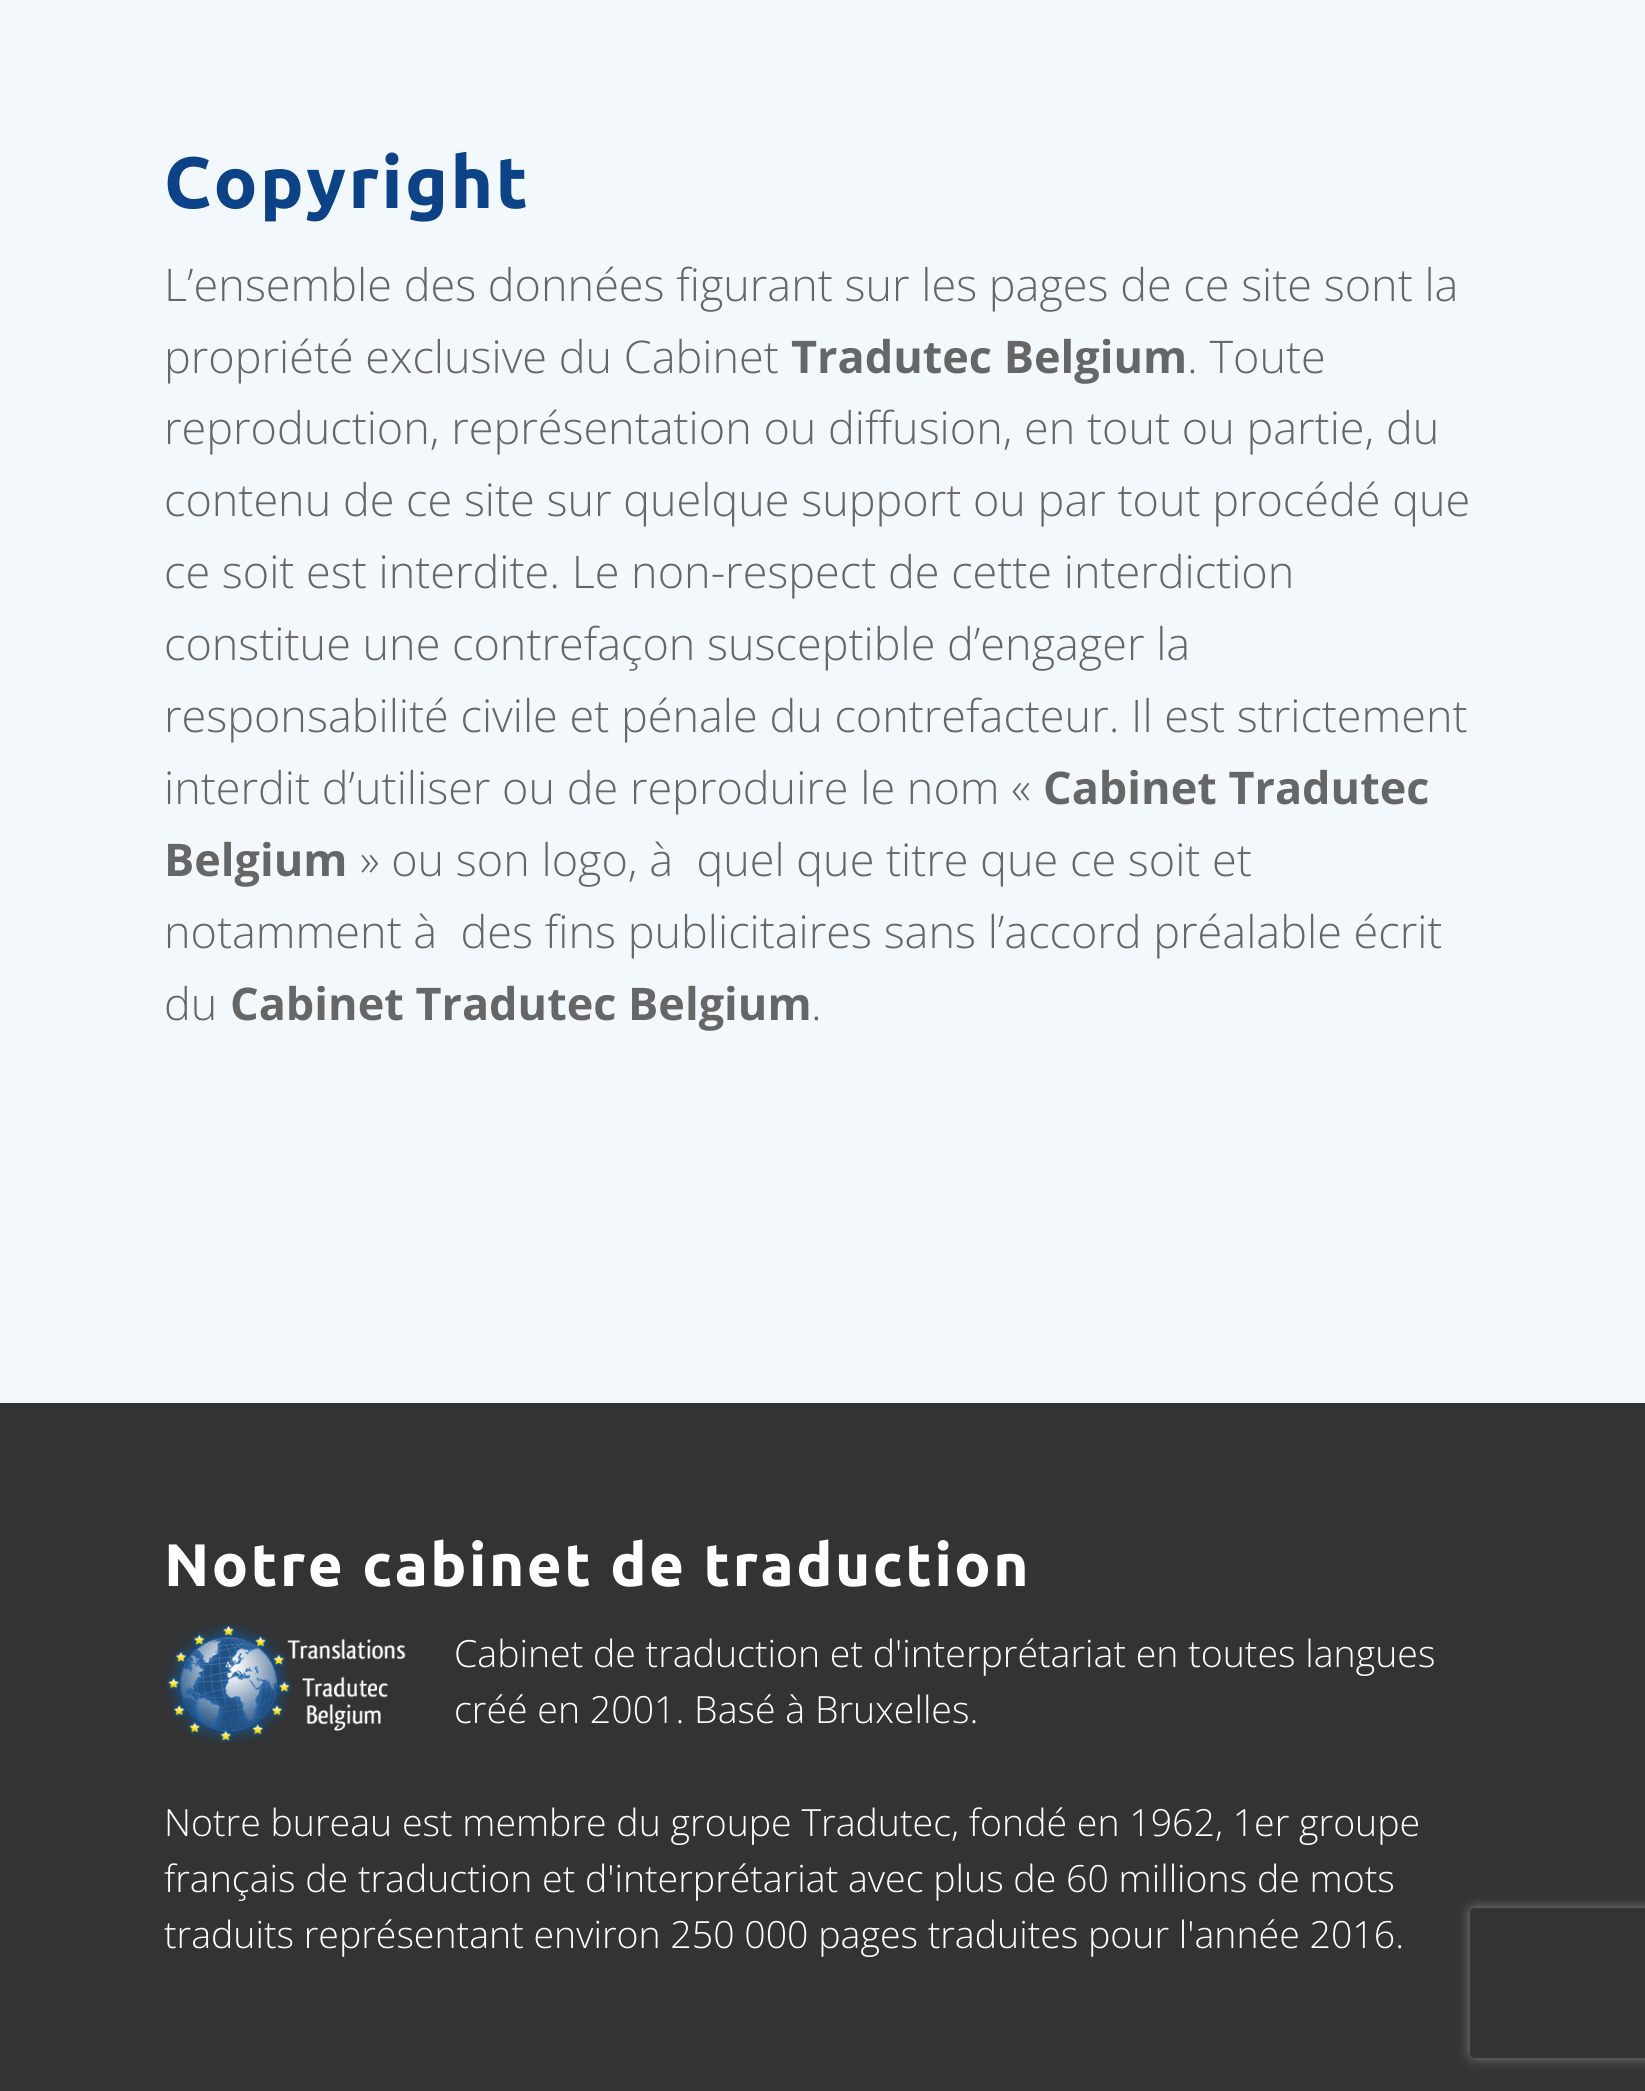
#include <cairo.h>
#include <math.h>
#include <stddef.h>


static void spaced_text(cairo_t *cr, double x, double y, const char *s, double letter, double word) {
    cairo_move_to(cr, x, y);
    while (*s) {
        char ch[5] = {0};
        int n = 0;
        do ch[n++] = *s++; while ((*s & 0xC0) == 0x80);
        cairo_show_text(cr, ch);
        cairo_rel_move_to(cr, letter + word * (*ch == ' '), 0);
    }
}

static void round_rect(cairo_t *cr, double x, double y, double w, double h, double r) {
    cairo_new_sub_path(cr);
    cairo_arc(cr, x + w - r, y + h - r, r, 0, M_PI / 2);
    cairo_arc(cr, x + r, y + h - r, r, M_PI / 2, M_PI);
    cairo_arc(cr, x + r, y + r, r, M_PI, 1.5 * M_PI);
    cairo_arc(cr, x + w - r, y + r, r, 1.5 * M_PI, 2 * M_PI);
    cairo_close_path(cr);
}

static void shadow(cairo_t *cr, double x, double y, double w, double h, double r, double blur, double alpha) {
    cairo_push_group_with_content(cr, CAIRO_CONTENT_ALPHA);
    cairo_set_operator(cr, CAIRO_OPERATOR_SOURCE);
    for (int i = 15; i >= -15 && fmin(w, h) + blur * i / 3 > 0; i -= 2) {
        double e = blur * i / 6;
        cairo_set_source_rgba(cr, 0, 0, 0, alpha * erfc((i - 1) / 8.5) / 2);
        round_rect(cr, x - e, y - e, w + 2 * e, h + 2 * e, fmax(0, fmin(r + e + blur * .6, fmin(w, h) / 2 + e)));
        cairo_fill(cr);
    }
    cairo_pattern_t *soft = cairo_pop_group(cr);
    cairo_mask(cr, soft);
    cairo_pattern_destroy(soft);
}

static void picture(cairo_t *cr, const char *path, double x, double y, double w, double h) {
    cairo_surface_t *image = cairo_image_surface_create_from_png(path);
    cairo_save(cr);
    cairo_set_source_surface(cr, image, x, y);
    cairo_rectangle(cr, x, y, w, h);
    cairo_fill(cr);
    cairo_restore(cr);
    cairo_surface_destroy(image);
}

int main(void) {
    cairo_surface_t *surface = cairo_image_surface_create(CAIRO_FORMAT_RGB24, 1645, 2091);
    cairo_t *cr = cairo_create(surface);
    cairo_font_options_t *options = cairo_font_options_create();
    cairo_font_options_set_hint_metrics(options, CAIRO_HINT_METRICS_OFF);
    cairo_font_options_set_hint_style(options, CAIRO_HINT_STYLE_NONE);
    cairo_set_font_options(cr, options);
    cairo_set_miter_limit(cr, 4);
    cairo_set_source_rgb(cr, 0.953, 0.969, 0.988);
    cairo_paint(cr);
    cairo_select_font_face(cr, "Ubuntu", CAIRO_FONT_SLANT_NORMAL, CAIRO_FONT_WEIGHT_BOLD);
    cairo_set_font_size(cr, 72.5);
    cairo_set_source_rgb(cr, 0.047, 0.259, 0.533);
    spaced_text(cr, 164, 208, "Copyright", 2.5, 0);
    cairo_select_font_face(cr, "Open Sans Light", CAIRO_FONT_SLANT_NORMAL, CAIRO_FONT_WEIGHT_NORMAL);
    cairo_set_font_size(cr, 45);
    cairo_set_source_rgb(cr, 0.4, 0.4, 0.4);
    cairo_move_to(cr, 164, 301);
    cairo_show_text(cr, "L’ensemble des données figurant sur les pages de ce site sont la");
    cairo_move_to(cr, 164, 373);
    cairo_show_text(cr, "propriété exclusive du Cabinet");
    cairo_select_font_face(cr, "Open Sans", CAIRO_FONT_SLANT_NORMAL, CAIRO_FONT_WEIGHT_BOLD);
    cairo_move_to(cr, 791, 373);
    cairo_show_text(cr, "Tradutec Belgium");
    cairo_select_font_face(cr, "Open Sans Light", CAIRO_FONT_SLANT_NORMAL, CAIRO_FONT_WEIGHT_NORMAL);
    cairo_move_to(cr, 1187, 373);
    cairo_show_text(cr, ". Toute");
    cairo_move_to(cr, 164, 444);
    cairo_show_text(cr, "reproduction, représentation ou diffusion, en tout ou partie, du");
    cairo_move_to(cr, 164, 516);
    cairo_show_text(cr, "contenu de ce site sur quelque support ou par tout procédé que");
    cairo_move_to(cr, 164, 588);
    cairo_show_text(cr, "ce soit est interdite. Le non-respect de cette interdiction");
    cairo_move_to(cr, 164, 660);
    cairo_show_text(cr, "constitue une contrefaçon susceptible d’engager la");
    cairo_move_to(cr, 164, 732);
    cairo_show_text(cr, "responsabilité civile et pénale du contrefacteur. Il est strictement");
    cairo_move_to(cr, 164, 804);
    cairo_show_text(cr, "interdit d’utiliser ou de reproduire le nom «");
    cairo_select_font_face(cr, "Open Sans", CAIRO_FONT_SLANT_NORMAL, CAIRO_FONT_WEIGHT_BOLD);
    cairo_move_to(cr, 1043, 804);
    cairo_show_text(cr, "Cabinet Tradutec");
    cairo_move_to(cr, 164, 876);
    cairo_show_text(cr, "Belgium");
    cairo_select_font_face(cr, "Open Sans Light", CAIRO_FONT_SLANT_NORMAL, CAIRO_FONT_WEIGHT_NORMAL);
    cairo_move_to(cr, 360, 876);
    cairo_show_text(cr, "» ou son logo, à  quel que titre que ce soit et");
    cairo_move_to(cr, 164, 948);
    cairo_show_text(cr, "notamment à  des fins publicitaires sans l’accord préalable écrit");
    cairo_move_to(cr, 164, 1020);
    cairo_show_text(cr, "du");
    cairo_select_font_face(cr, "Open Sans", CAIRO_FONT_SLANT_NORMAL, CAIRO_FONT_WEIGHT_BOLD);
    cairo_move_to(cr, 230, 1020);
    cairo_show_text(cr, "Cabinet Tradutec Belgium");
    cairo_select_font_face(cr, "Open Sans Light", CAIRO_FONT_SLANT_NORMAL, CAIRO_FONT_WEIGHT_NORMAL);
    cairo_move_to(cr, 811, 1020);
    cairo_show_text(cr, ".");
    cairo_set_source_rgb(cr, 0.2, 0.2, 0.2);
    cairo_rectangle(cr, 0, 1403, 1645, 688);
    cairo_fill(cr);
    cairo_select_font_face(cr, "Ubuntu", CAIRO_FONT_SLANT_NORMAL, CAIRO_FONT_WEIGHT_BOLD);
    cairo_set_font_size(cr, 60);
    cairo_set_source_rgb(cr, 1, 1, 1);
    spaced_text(cr, 164, 1586, "Notre cabinet de traduction", 2.5, 0);
    picture(cr, "img1.png", 165, 1625, 241, 118);
    cairo_select_font_face(cr, "Open Sans Light", CAIRO_FONT_SLANT_NORMAL, CAIRO_FONT_WEIGHT_NORMAL);
    cairo_set_font_size(cr, 37.5);
    cairo_move_to(cr, 454, 1667);
    cairo_show_text(cr, "Cabinet de traduction et d'interprétariat en toutes langues");
    cairo_move_to(cr, 454, 1723);
    cairo_show_text(cr, "créé en 2001. Basé à Bruxelles.");
    cairo_move_to(cr, 164, 1836);
    cairo_show_text(cr, "Notre bureau est membre du groupe Tradutec, fondé en 1962, 1er groupe");
    cairo_move_to(cr, 164, 1892);
    cairo_show_text(cr, "français de traduction et d'interprétariat avec plus de 60 millions de mots");
    cairo_move_to(cr, 164, 1948);
    cairo_show_text(cr, "traduits représentant environ 250 000 pages traduites pour l'année 2016.");
    cairo_save(cr);
    cairo_set_fill_rule(cr, CAIRO_FILL_RULE_EVEN_ODD);
    cairo_new_path(cr);
    cairo_move_to(cr, 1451, 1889);
    cairo_line_to(cr, 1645, 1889);
    cairo_line_to(cr, 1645, 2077);
    cairo_line_to(cr, 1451, 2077);
    cairo_close_path(cr);
    cairo_move_to(cr, 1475, 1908);
    cairo_line_to(cr, 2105, 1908);
    cairo_curve_to(cr, 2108, 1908, 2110, 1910, 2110, 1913);
    cairo_line_to(cr, 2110, 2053);
    cairo_curve_to(cr, 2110, 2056, 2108, 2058, 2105, 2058);
    cairo_line_to(cr, 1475, 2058);
    cairo_curve_to(cr, 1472, 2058, 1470, 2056, 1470, 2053);
    cairo_line_to(cr, 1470, 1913);
    cairo_curve_to(cr, 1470, 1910, 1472, 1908, 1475, 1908);
    cairo_close_path(cr);
    cairo_clip(cr);
    cairo_set_source_rgb(cr, 0.502, 0.502, 0.502);
    shadow(cr, 1470, 1908, 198, 150, 5, 6, 1);
    cairo_restore(cr);
    cairo_surface_write_to_png(surface, "page.png");
    cairo_font_options_destroy(options);
    cairo_destroy(cr);
    cairo_surface_destroy(surface);
    return 0;
}
